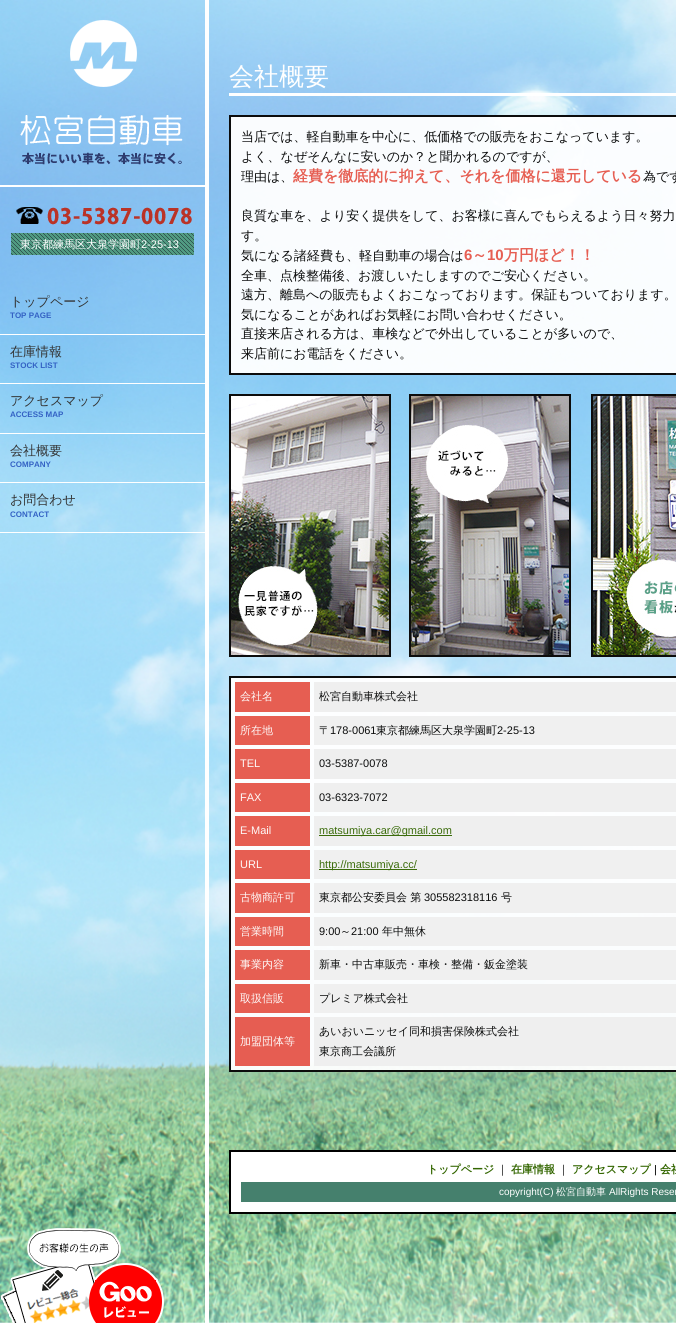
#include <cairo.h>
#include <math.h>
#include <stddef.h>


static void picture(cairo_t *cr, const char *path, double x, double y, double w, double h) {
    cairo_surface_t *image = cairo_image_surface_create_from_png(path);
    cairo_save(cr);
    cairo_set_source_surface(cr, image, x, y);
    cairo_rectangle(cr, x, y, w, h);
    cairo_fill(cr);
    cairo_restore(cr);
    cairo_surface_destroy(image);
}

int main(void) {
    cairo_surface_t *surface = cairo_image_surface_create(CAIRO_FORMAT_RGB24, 676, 1323);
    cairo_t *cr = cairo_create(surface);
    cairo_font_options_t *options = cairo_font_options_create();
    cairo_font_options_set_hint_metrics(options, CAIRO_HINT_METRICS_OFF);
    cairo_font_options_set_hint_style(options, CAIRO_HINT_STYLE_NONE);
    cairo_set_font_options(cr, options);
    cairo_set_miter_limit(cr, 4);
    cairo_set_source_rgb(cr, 1, 1, 1);
    cairo_paint(cr);
    picture(cr, "img1.png", 0, 0, 676, 1323);
    cairo_set_source_rgb(cr, 1, 1, 1);
    cairo_rectangle(cr, 205, 0, 4, 1323);
    cairo_fill(cr);
    cairo_rectangle(cr, 0, 185, 205, 2);
    cairo_fill(cr);
    picture(cr, "img2.png", 20, 20, 163, 145);
    picture(cr, "img3.png", 11, 207, 183, 48);
    cairo_select_font_face(cr, "WenQuanYi Zen Hei Medium", CAIRO_FONT_SLANT_NORMAL, CAIRO_FONT_WEIGHT_NORMAL);
    cairo_set_font_size(cr, 11);
    cairo_move_to(cr, 20, 248);
    cairo_show_text(cr, "東京都練馬区大泉学園町");
    cairo_select_font_face(cr, "Liberation Sans", CAIRO_FONT_SLANT_NORMAL, CAIRO_FONT_WEIGHT_NORMAL);
    cairo_move_to(cr, 141, 248);
    cairo_show_text(cr, "2-25-13");
    cairo_rectangle(cr, 0, 334, 205, 1);
    cairo_fill(cr);
    cairo_select_font_face(cr, "WenQuanYi Zen Hei Medium", CAIRO_FONT_SLANT_NORMAL, CAIRO_FONT_WEIGHT_NORMAL);
    cairo_set_font_size(cr, 13);
    cairo_set_source_rgb(cr, 0.2, 0.2, 0.2);
    cairo_move_to(cr, 10, 306);
    cairo_show_text(cr, "トップページ");
    cairo_select_font_face(cr, "Liberation Sans", CAIRO_FONT_SLANT_NORMAL, CAIRO_FONT_WEIGHT_BOLD);
    cairo_set_font_size(cr, 8);
    cairo_set_source_rgb(cr, 0.2, 0.38, 0.769);
    cairo_move_to(cr, 10, 318);
    cairo_show_text(cr, "TOP PAGE");
    cairo_set_source_rgb(cr, 1, 1, 1);
    cairo_rectangle(cr, 0, 383, 205, 1);
    cairo_fill(cr);
    cairo_select_font_face(cr, "WenQuanYi Zen Hei Medium", CAIRO_FONT_SLANT_NORMAL, CAIRO_FONT_WEIGHT_NORMAL);
    cairo_set_font_size(cr, 13);
    cairo_set_source_rgb(cr, 0.2, 0.2, 0.2);
    cairo_move_to(cr, 10, 356);
    cairo_show_text(cr, "在庫情報");
    cairo_select_font_face(cr, "Liberation Sans", CAIRO_FONT_SLANT_NORMAL, CAIRO_FONT_WEIGHT_BOLD);
    cairo_set_font_size(cr, 8);
    cairo_set_source_rgb(cr, 0.2, 0.38, 0.769);
    cairo_move_to(cr, 10, 368);
    cairo_show_text(cr, "STOCK LIST");
    cairo_set_source_rgb(cr, 1, 1, 1);
    cairo_rectangle(cr, 0, 433, 205, 1);
    cairo_fill(cr);
    cairo_select_font_face(cr, "WenQuanYi Zen Hei Medium", CAIRO_FONT_SLANT_NORMAL, CAIRO_FONT_WEIGHT_NORMAL);
    cairo_set_font_size(cr, 13);
    cairo_set_source_rgb(cr, 0.2, 0.2, 0.2);
    cairo_move_to(cr, 10, 405);
    cairo_show_text(cr, "アクセスマップ");
    cairo_select_font_face(cr, "Liberation Sans", CAIRO_FONT_SLANT_NORMAL, CAIRO_FONT_WEIGHT_BOLD);
    cairo_set_font_size(cr, 8);
    cairo_set_source_rgb(cr, 0.2, 0.38, 0.769);
    cairo_move_to(cr, 10, 417);
    cairo_show_text(cr, "ACCESS MAP");
    cairo_set_source_rgb(cr, 1, 1, 1);
    cairo_rectangle(cr, 0, 482, 205, 1);
    cairo_fill(cr);
    cairo_select_font_face(cr, "WenQuanYi Zen Hei Medium", CAIRO_FONT_SLANT_NORMAL, CAIRO_FONT_WEIGHT_NORMAL);
    cairo_set_font_size(cr, 13);
    cairo_set_source_rgb(cr, 0.2, 0.2, 0.2);
    cairo_move_to(cr, 10, 455);
    cairo_show_text(cr, "会社概要");
    cairo_select_font_face(cr, "Liberation Sans", CAIRO_FONT_SLANT_NORMAL, CAIRO_FONT_WEIGHT_BOLD);
    cairo_set_font_size(cr, 8);
    cairo_set_source_rgb(cr, 0.2, 0.38, 0.769);
    cairo_move_to(cr, 10, 467);
    cairo_show_text(cr, "COMPANY");
    cairo_set_source_rgb(cr, 1, 1, 1);
    cairo_rectangle(cr, 0, 532, 205, 1);
    cairo_fill(cr);
    cairo_select_font_face(cr, "WenQuanYi Zen Hei Medium", CAIRO_FONT_SLANT_NORMAL, CAIRO_FONT_WEIGHT_NORMAL);
    cairo_set_font_size(cr, 13);
    cairo_set_source_rgb(cr, 0.2, 0.2, 0.2);
    cairo_move_to(cr, 10, 504);
    cairo_show_text(cr, "お問合わせ");
    cairo_select_font_face(cr, "Liberation Sans", CAIRO_FONT_SLANT_NORMAL, CAIRO_FONT_WEIGHT_BOLD);
    cairo_set_font_size(cr, 8);
    cairo_set_source_rgb(cr, 0.2, 0.38, 0.769);
    cairo_move_to(cr, 10, 517);
    cairo_show_text(cr, "CONTACT");
    picture(cr, "img4.png", 0, 1228, 164, 95);
    cairo_set_source_rgb(cr, 1, 1, 1);
    cairo_rectangle(cr, 229, 93, 447, 3);
    cairo_fill(cr);
    cairo_select_font_face(cr, "WenQuanYi Zen Hei Medium", CAIRO_FONT_SLANT_NORMAL, CAIRO_FONT_WEIGHT_NORMAL);
    cairo_set_font_size(cr, 25);
    cairo_move_to(cr, 229, 85);
    cairo_show_text(cr, "会社概要");
    cairo_set_source_rgba(cr, 1, 1, 1, 0.95);
    cairo_rectangle(cr, 229, 115, 447, 260);
    cairo_fill(cr);
    cairo_rectangle(cr, 230, 116, 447, 258);
    cairo_set_source_rgba(cr, 0, 0, 0, 0.95);
    cairo_stroke(cr);
    cairo_set_font_size(cr, 13);
    cairo_set_source_rgb(cr, 0.043, 0.047, 0.047);
    cairo_move_to(cr, 241, 141);
    cairo_show_text(cr, "当店では、軽自動車を中心に、低価格での販売をおこなっています。");
    cairo_move_to(cr, 241, 161);
    cairo_show_text(cr, "よく、なぜそんなに安いのか？と聞かれるのですが、");
    cairo_move_to(cr, 241, 181);
    cairo_show_text(cr, "理由は、");
    cairo_select_font_face(cr, "WenQuanYi Zen Hei", CAIRO_FONT_SLANT_NORMAL, CAIRO_FONT_WEIGHT_BOLD);
    cairo_set_font_size(cr, 15);
    cairo_set_source_rgb(cr, 0.902, 0.369, 0.322);
    cairo_move_to(cr, 293, 181);
    cairo_show_text(cr, "経費を徹底的に抑えて、それを価格に還元している");
    cairo_select_font_face(cr, "WenQuanYi Zen Hei Medium", CAIRO_FONT_SLANT_NORMAL, CAIRO_FONT_WEIGHT_NORMAL);
    cairo_set_font_size(cr, 13);
    cairo_set_source_rgb(cr, 0.043, 0.047, 0.047);
    cairo_move_to(cr, 643, 181);
    cairo_show_text(cr, "為です");
    cairo_move_to(cr, 241, 220);
    cairo_show_text(cr, "良質な車を、より安く提供をして、お客様に喜んでもらえるよう日々努力");
    cairo_move_to(cr, 241, 240);
    cairo_show_text(cr, "す。");
    cairo_move_to(cr, 241, 260);
    cairo_show_text(cr, "気になる諸経費も、軽自動車の場合は");
    cairo_select_font_face(cr, "Liberation Sans", CAIRO_FONT_SLANT_NORMAL, CAIRO_FONT_WEIGHT_BOLD);
    cairo_set_font_size(cr, 15);
    cairo_set_source_rgb(cr, 0.902, 0.369, 0.322);
    cairo_move_to(cr, 464, 260);
    cairo_show_text(cr, "6");
    cairo_select_font_face(cr, "WenQuanYi Zen Hei", CAIRO_FONT_SLANT_NORMAL, CAIRO_FONT_WEIGHT_BOLD);
    cairo_move_to(cr, 472, 260);
    cairo_show_text(cr, "～");
    cairo_select_font_face(cr, "Liberation Sans", CAIRO_FONT_SLANT_NORMAL, CAIRO_FONT_WEIGHT_BOLD);
    cairo_move_to(cr, 487, 260);
    cairo_show_text(cr, "10");
    cairo_select_font_face(cr, "WenQuanYi Zen Hei", CAIRO_FONT_SLANT_NORMAL, CAIRO_FONT_WEIGHT_BOLD);
    cairo_move_to(cr, 504, 260);
    cairo_show_text(cr, "万円ほど！！");
    cairo_select_font_face(cr, "WenQuanYi Zen Hei Medium", CAIRO_FONT_SLANT_NORMAL, CAIRO_FONT_WEIGHT_NORMAL);
    cairo_set_font_size(cr, 13);
    cairo_set_source_rgb(cr, 0.043, 0.047, 0.047);
    cairo_move_to(cr, 241, 280);
    cairo_show_text(cr, "全車、点検整備後、お渡しいたしますのでご安心ください。");
    cairo_move_to(cr, 241, 299);
    cairo_show_text(cr, "遠方、離島への販売もよくおこなっております。保証もついております。");
    cairo_move_to(cr, 241, 319);
    cairo_show_text(cr, "気になることがあればお気軽にお問い合わせください。");
    cairo_move_to(cr, 241, 338);
    cairo_show_text(cr, "直接来店される方は、車検などで外出していることが多いので、");
    cairo_move_to(cr, 241, 358);
    cairo_show_text(cr, "来店前にお電話をください。");
    cairo_set_source_rgba(cr, 1, 1, 1, 0.95);
    cairo_rectangle(cr, 229, 394, 162, 263);
    cairo_fill(cr);
    cairo_rectangle(cr, 230, 395, 160, 261);
    cairo_set_source_rgba(cr, 0, 0, 0, 0.95);
    cairo_stroke(cr);
    picture(cr, "img5.png", 231, 396, 158, 259);
    cairo_set_source_rgba(cr, 1, 1, 1, 0.95);
    cairo_rectangle(cr, 409, 394, 162, 263);
    cairo_fill(cr);
    cairo_rectangle(cr, 410, 395, 160, 261);
    cairo_set_source_rgba(cr, 0, 0, 0, 0.95);
    cairo_stroke(cr);
    picture(cr, "img6.png", 411, 396, 158, 259);
    cairo_set_source_rgba(cr, 1, 1, 1, 0.95);
    cairo_rectangle(cr, 591, 394, 85, 263);
    cairo_fill(cr);
    cairo_rectangle(cr, 592, 395, 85, 261);
    cairo_set_source_rgba(cr, 0, 0, 0, 0.95);
    cairo_stroke(cr);
    picture(cr, "img7.png", 593, 396, 83, 259);
    cairo_set_source_rgba(cr, 1, 1, 1, 0.95);
    cairo_rectangle(cr, 229, 676, 447, 396);
    cairo_fill(cr);
    cairo_rectangle(cr, 230, 677, 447, 394);
    cairo_set_source_rgba(cr, 0, 0, 0, 0.95);
    cairo_stroke(cr);
    cairo_set_source_rgb(cr, 0.902, 0.369, 0.322);
    cairo_rectangle(cr, 235, 682, 75, 30);
    cairo_fill(cr);
    cairo_set_font_size(cr, 11);
    cairo_set_source_rgb(cr, 0.996, 0.973, 0.969);
    cairo_move_to(cr, 240, 700);
    cairo_show_text(cr, "会社名");
    cairo_set_source_rgba(cr, 0.937, 0.937, 0.937, 0.95);
    cairo_rectangle(cr, 314, 682, 362, 30);
    cairo_fill(cr);
    cairo_set_source_rgb(cr, 0.043, 0.047, 0.047);
    cairo_move_to(cr, 319, 700);
    cairo_show_text(cr, "松宮自動車株式会社");
    cairo_set_source_rgb(cr, 0.902, 0.369, 0.322);
    cairo_rectangle(cr, 235, 716, 75, 29);
    cairo_fill(cr);
    cairo_set_source_rgb(cr, 0.996, 0.973, 0.969);
    cairo_move_to(cr, 240, 734);
    cairo_show_text(cr, "所在地");
    cairo_set_source_rgb(cr, 0.941, 0.941, 0.941);
    cairo_rectangle(cr, 314, 716, 362, 29);
    cairo_fill(cr);
    cairo_set_source_rgb(cr, 0.043, 0.047, 0.047);
    cairo_move_to(cr, 319, 734);
    cairo_show_text(cr, "〒");
    cairo_select_font_face(cr, "Liberation Sans", CAIRO_FONT_SLANT_NORMAL, CAIRO_FONT_WEIGHT_NORMAL);
    cairo_move_to(cr, 330, 734);
    cairo_show_text(cr, "178-0061");
    cairo_select_font_face(cr, "WenQuanYi Zen Hei Medium", CAIRO_FONT_SLANT_NORMAL, CAIRO_FONT_WEIGHT_NORMAL);
    cairo_move_to(cr, 376, 734);
    cairo_show_text(cr, "東京都練馬区大泉学園町");
    cairo_select_font_face(cr, "Liberation Sans", CAIRO_FONT_SLANT_NORMAL, CAIRO_FONT_WEIGHT_NORMAL);
    cairo_move_to(cr, 497, 734);
    cairo_show_text(cr, "2-25-13");
    cairo_set_source_rgb(cr, 0.902, 0.369, 0.322);
    cairo_rectangle(cr, 235, 749, 75, 30);
    cairo_fill(cr);
    cairo_set_source_rgb(cr, 0.996, 0.973, 0.969);
    cairo_move_to(cr, 240, 767);
    cairo_show_text(cr, "TEL");
    cairo_set_source_rgba(cr, 0.937, 0.937, 0.937, 0.95);
    cairo_rectangle(cr, 314, 749, 362, 30);
    cairo_fill(cr);
    cairo_set_source_rgb(cr, 0.043, 0.047, 0.047);
    cairo_move_to(cr, 319, 767);
    cairo_show_text(cr, "03-5387-0078");
    cairo_set_source_rgb(cr, 0.902, 0.369, 0.322);
    cairo_rectangle(cr, 235, 783, 75, 29);
    cairo_fill(cr);
    cairo_set_source_rgb(cr, 0.996, 0.973, 0.969);
    cairo_move_to(cr, 240, 801);
    cairo_show_text(cr, "FAX");
    cairo_set_source_rgba(cr, 0.937, 0.937, 0.937, 0.95);
    cairo_rectangle(cr, 314, 783, 362, 29);
    cairo_fill(cr);
    cairo_set_source_rgb(cr, 0.043, 0.047, 0.047);
    cairo_move_to(cr, 319, 801);
    cairo_show_text(cr, "03-6323-7072");
    cairo_set_source_rgb(cr, 0.902, 0.369, 0.322);
    cairo_rectangle(cr, 235, 816, 75, 30);
    cairo_fill(cr);
    cairo_set_source_rgb(cr, 0.996, 0.973, 0.969);
    cairo_move_to(cr, 240, 834);
    cairo_show_text(cr, "E-Mail");
    cairo_set_source_rgba(cr, 0.937, 0.937, 0.937, 0.95);
    cairo_rectangle(cr, 314, 816, 362, 30);
    cairo_fill(cr);
    cairo_set_source_rgb(cr, 0.235, 0.424, 0.043);
    cairo_rectangle(cr, 319, 835, 133, 1);
    cairo_fill(cr);
    cairo_set_source_rgb(cr, 0.231, 0.424, 0.043);
    cairo_move_to(cr, 319, 834);
    cairo_show_text(cr, "matsumiya.car@gmail.com");
    cairo_set_source_rgb(cr, 0.902, 0.369, 0.322);
    cairo_rectangle(cr, 235, 850, 75, 29);
    cairo_fill(cr);
    cairo_set_source_rgb(cr, 0.996, 0.973, 0.969);
    cairo_move_to(cr, 240, 868);
    cairo_show_text(cr, "URL");
    cairo_set_source_rgb(cr, 0.941, 0.941, 0.941);
    cairo_rectangle(cr, 314, 850, 362, 29);
    cairo_fill(cr);
    cairo_set_source_rgb(cr, 0.235, 0.424, 0.043);
    cairo_rectangle(cr, 319, 869, 98, 1);
    cairo_fill(cr);
    cairo_set_source_rgb(cr, 0.231, 0.424, 0.043);
    cairo_move_to(cr, 319, 868);
    cairo_show_text(cr, "http://matsumiya.cc/");
    cairo_set_source_rgb(cr, 0.902, 0.369, 0.322);
    cairo_rectangle(cr, 235, 883, 75, 30);
    cairo_fill(cr);
    cairo_select_font_face(cr, "WenQuanYi Zen Hei Medium", CAIRO_FONT_SLANT_NORMAL, CAIRO_FONT_WEIGHT_NORMAL);
    cairo_set_source_rgb(cr, 0.996, 0.973, 0.969);
    cairo_move_to(cr, 240, 901);
    cairo_show_text(cr, "古物商許可");
    cairo_set_source_rgb(cr, 0.941, 0.941, 0.941);
    cairo_rectangle(cr, 314, 883, 362, 30);
    cairo_fill(cr);
    cairo_set_source_rgb(cr, 0.043, 0.047, 0.047);
    cairo_move_to(cr, 319, 901);
    cairo_show_text(cr, "東京都公安委員会 第");
    cairo_select_font_face(cr, "Liberation Sans", CAIRO_FONT_SLANT_NORMAL, CAIRO_FONT_WEIGHT_NORMAL);
    cairo_move_to(cr, 424, 901);
    cairo_show_text(cr, "305582318116");
    cairo_select_font_face(cr, "WenQuanYi Zen Hei Medium", CAIRO_FONT_SLANT_NORMAL, CAIRO_FONT_WEIGHT_NORMAL);
    cairo_move_to(cr, 501, 901);
    cairo_show_text(cr, "号");
    cairo_set_source_rgb(cr, 0.902, 0.369, 0.322);
    cairo_rectangle(cr, 235, 917, 75, 29);
    cairo_fill(cr);
    cairo_set_source_rgb(cr, 0.996, 0.973, 0.969);
    cairo_move_to(cr, 240, 935);
    cairo_show_text(cr, "営業時間");
    cairo_set_source_rgb(cr, 0.941, 0.941, 0.941);
    cairo_rectangle(cr, 314, 917, 362, 29);
    cairo_fill(cr);
    cairo_select_font_face(cr, "Liberation Sans", CAIRO_FONT_SLANT_NORMAL, CAIRO_FONT_WEIGHT_NORMAL);
    cairo_set_source_rgb(cr, 0.043, 0.047, 0.047);
    cairo_move_to(cr, 319, 935);
    cairo_show_text(cr, "9:00");
    cairo_select_font_face(cr, "WenQuanYi Zen Hei Medium", CAIRO_FONT_SLANT_NORMAL, CAIRO_FONT_WEIGHT_NORMAL);
    cairo_move_to(cr, 340, 935);
    cairo_show_text(cr, "～");
    cairo_select_font_face(cr, "Liberation Sans", CAIRO_FONT_SLANT_NORMAL, CAIRO_FONT_WEIGHT_NORMAL);
    cairo_move_to(cr, 351, 935);
    cairo_show_text(cr, "21:00");
    cairo_select_font_face(cr, "WenQuanYi Zen Hei Medium", CAIRO_FONT_SLANT_NORMAL, CAIRO_FONT_WEIGHT_NORMAL);
    cairo_move_to(cr, 382, 935);
    cairo_show_text(cr, "年中無休");
    cairo_set_source_rgb(cr, 0.902, 0.369, 0.322);
    cairo_rectangle(cr, 235, 950, 75, 30);
    cairo_fill(cr);
    cairo_set_source_rgb(cr, 0.996, 0.973, 0.969);
    cairo_move_to(cr, 240, 968);
    cairo_show_text(cr, "事業内容");
    cairo_set_source_rgb(cr, 0.941, 0.941, 0.941);
    cairo_rectangle(cr, 314, 950, 362, 30);
    cairo_fill(cr);
    cairo_set_source_rgb(cr, 0.043, 0.047, 0.047);
    cairo_move_to(cr, 319, 968);
    cairo_show_text(cr, "新車・中古車販売・車検・整備・鈑金塗装");
    cairo_set_source_rgb(cr, 0.902, 0.369, 0.322);
    cairo_rectangle(cr, 235, 984, 75, 29);
    cairo_fill(cr);
    cairo_set_source_rgb(cr, 0.996, 0.973, 0.969);
    cairo_move_to(cr, 240, 1002);
    cairo_show_text(cr, "取扱信販");
    cairo_set_source_rgb(cr, 0.941, 0.941, 0.941);
    cairo_rectangle(cr, 314, 984, 362, 29);
    cairo_fill(cr);
    cairo_set_source_rgb(cr, 0.043, 0.047, 0.047);
    cairo_move_to(cr, 319, 1002);
    cairo_show_text(cr, "プレミア株式会社");
    cairo_set_source_rgba(cr, 0.898, 0.337, 0.29, 0.95);
    cairo_rectangle(cr, 235, 1017, 75, 49);
    cairo_fill(cr);
    cairo_set_source_rgb(cr, 0.996, 0.973, 0.969);
    cairo_move_to(cr, 240, 1045);
    cairo_show_text(cr, "加盟団体等");
    cairo_set_source_rgba(cr, 0.937, 0.937, 0.937, 0.95);
    cairo_rectangle(cr, 314, 1017, 362, 49);
    cairo_fill(cr);
    cairo_set_source_rgb(cr, 0.043, 0.047, 0.047);
    cairo_move_to(cr, 319, 1035);
    cairo_show_text(cr, "あいおいニッセイ同和損害保険株式会社");
    cairo_move_to(cr, 319, 1055);
    cairo_show_text(cr, "東京商工会議所");
    cairo_set_source_rgb(cr, 1, 1, 1);
    cairo_rectangle(cr, 230, 1151, 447, 62);
    cairo_fill_preserve(cr);
    cairo_set_source_rgb(cr, 0, 0, 0);
    cairo_stroke(cr);
    cairo_select_font_face(cr, "WenQuanYi Zen Hei", CAIRO_FONT_SLANT_NORMAL, CAIRO_FONT_WEIGHT_BOLD);
    cairo_set_source_rgb(cr, 0.2, 0.4, 0);
    cairo_move_to(cr, 427, 1173);
    cairo_show_text(cr, "トップページ");
    cairo_select_font_face(cr, "WenQuanYi Zen Hei Medium", CAIRO_FONT_SLANT_NORMAL, CAIRO_FONT_WEIGHT_NORMAL);
    cairo_set_source_rgb(cr, 0, 0, 0);
    cairo_move_to(cr, 497, 1173);
    cairo_show_text(cr, "｜");
    cairo_select_font_face(cr, "WenQuanYi Zen Hei", CAIRO_FONT_SLANT_NORMAL, CAIRO_FONT_WEIGHT_BOLD);
    cairo_set_source_rgb(cr, 0.2, 0.4, 0);
    cairo_move_to(cr, 511, 1173);
    cairo_show_text(cr, "在庫情報");
    cairo_select_font_face(cr, "WenQuanYi Zen Hei Medium", CAIRO_FONT_SLANT_NORMAL, CAIRO_FONT_WEIGHT_NORMAL);
    cairo_set_source_rgb(cr, 0, 0, 0);
    cairo_move_to(cr, 558, 1173);
    cairo_show_text(cr, "｜");
    cairo_select_font_face(cr, "WenQuanYi Zen Hei", CAIRO_FONT_SLANT_NORMAL, CAIRO_FONT_WEIGHT_BOLD);
    cairo_set_source_rgb(cr, 0.2, 0.4, 0);
    cairo_move_to(cr, 572, 1173);
    cairo_show_text(cr, "アクセスマップ");
    cairo_select_font_face(cr, "Liberation Sans", CAIRO_FONT_SLANT_NORMAL, CAIRO_FONT_WEIGHT_NORMAL);
    cairo_set_source_rgb(cr, 0, 0, 0);
    cairo_move_to(cr, 654, 1173);
    cairo_show_text(cr, "|");
    cairo_select_font_face(cr, "WenQuanYi Zen Hei", CAIRO_FONT_SLANT_NORMAL, CAIRO_FONT_WEIGHT_BOLD);
    cairo_set_source_rgb(cr, 0.2, 0.4, 0);
    cairo_move_to(cr, 660, 1173);
    cairo_show_text(cr, "会社");
    cairo_set_source_rgb(cr, 0.271, 0.502, 0.427);
    cairo_rectangle(cr, 241, 1182, 435, 20);
    cairo_fill(cr);
    cairo_select_font_face(cr, "Liberation Sans", CAIRO_FONT_SLANT_NORMAL, CAIRO_FONT_WEIGHT_NORMAL);
    cairo_set_font_size(cr, 10);
    cairo_set_source_rgb(cr, 1, 1, 1);
    cairo_move_to(cr, 499, 1195);
    cairo_show_text(cr, "copyright(C)");
    cairo_select_font_face(cr, "WenQuanYi Zen Hei Medium", CAIRO_FONT_SLANT_NORMAL, CAIRO_FONT_WEIGHT_NORMAL);
    cairo_move_to(cr, 556, 1195);
    cairo_show_text(cr, "松宮自動車");
    cairo_select_font_face(cr, "Liberation Sans", CAIRO_FONT_SLANT_NORMAL, CAIRO_FONT_WEIGHT_NORMAL);
    cairo_move_to(cr, 609, 1195);
    cairo_show_text(cr, "AllRights Reser");
    cairo_surface_write_to_png(surface, "page.png");
    cairo_font_options_destroy(options);
    cairo_destroy(cr);
    cairo_surface_destroy(surface);
    return 0;
}
